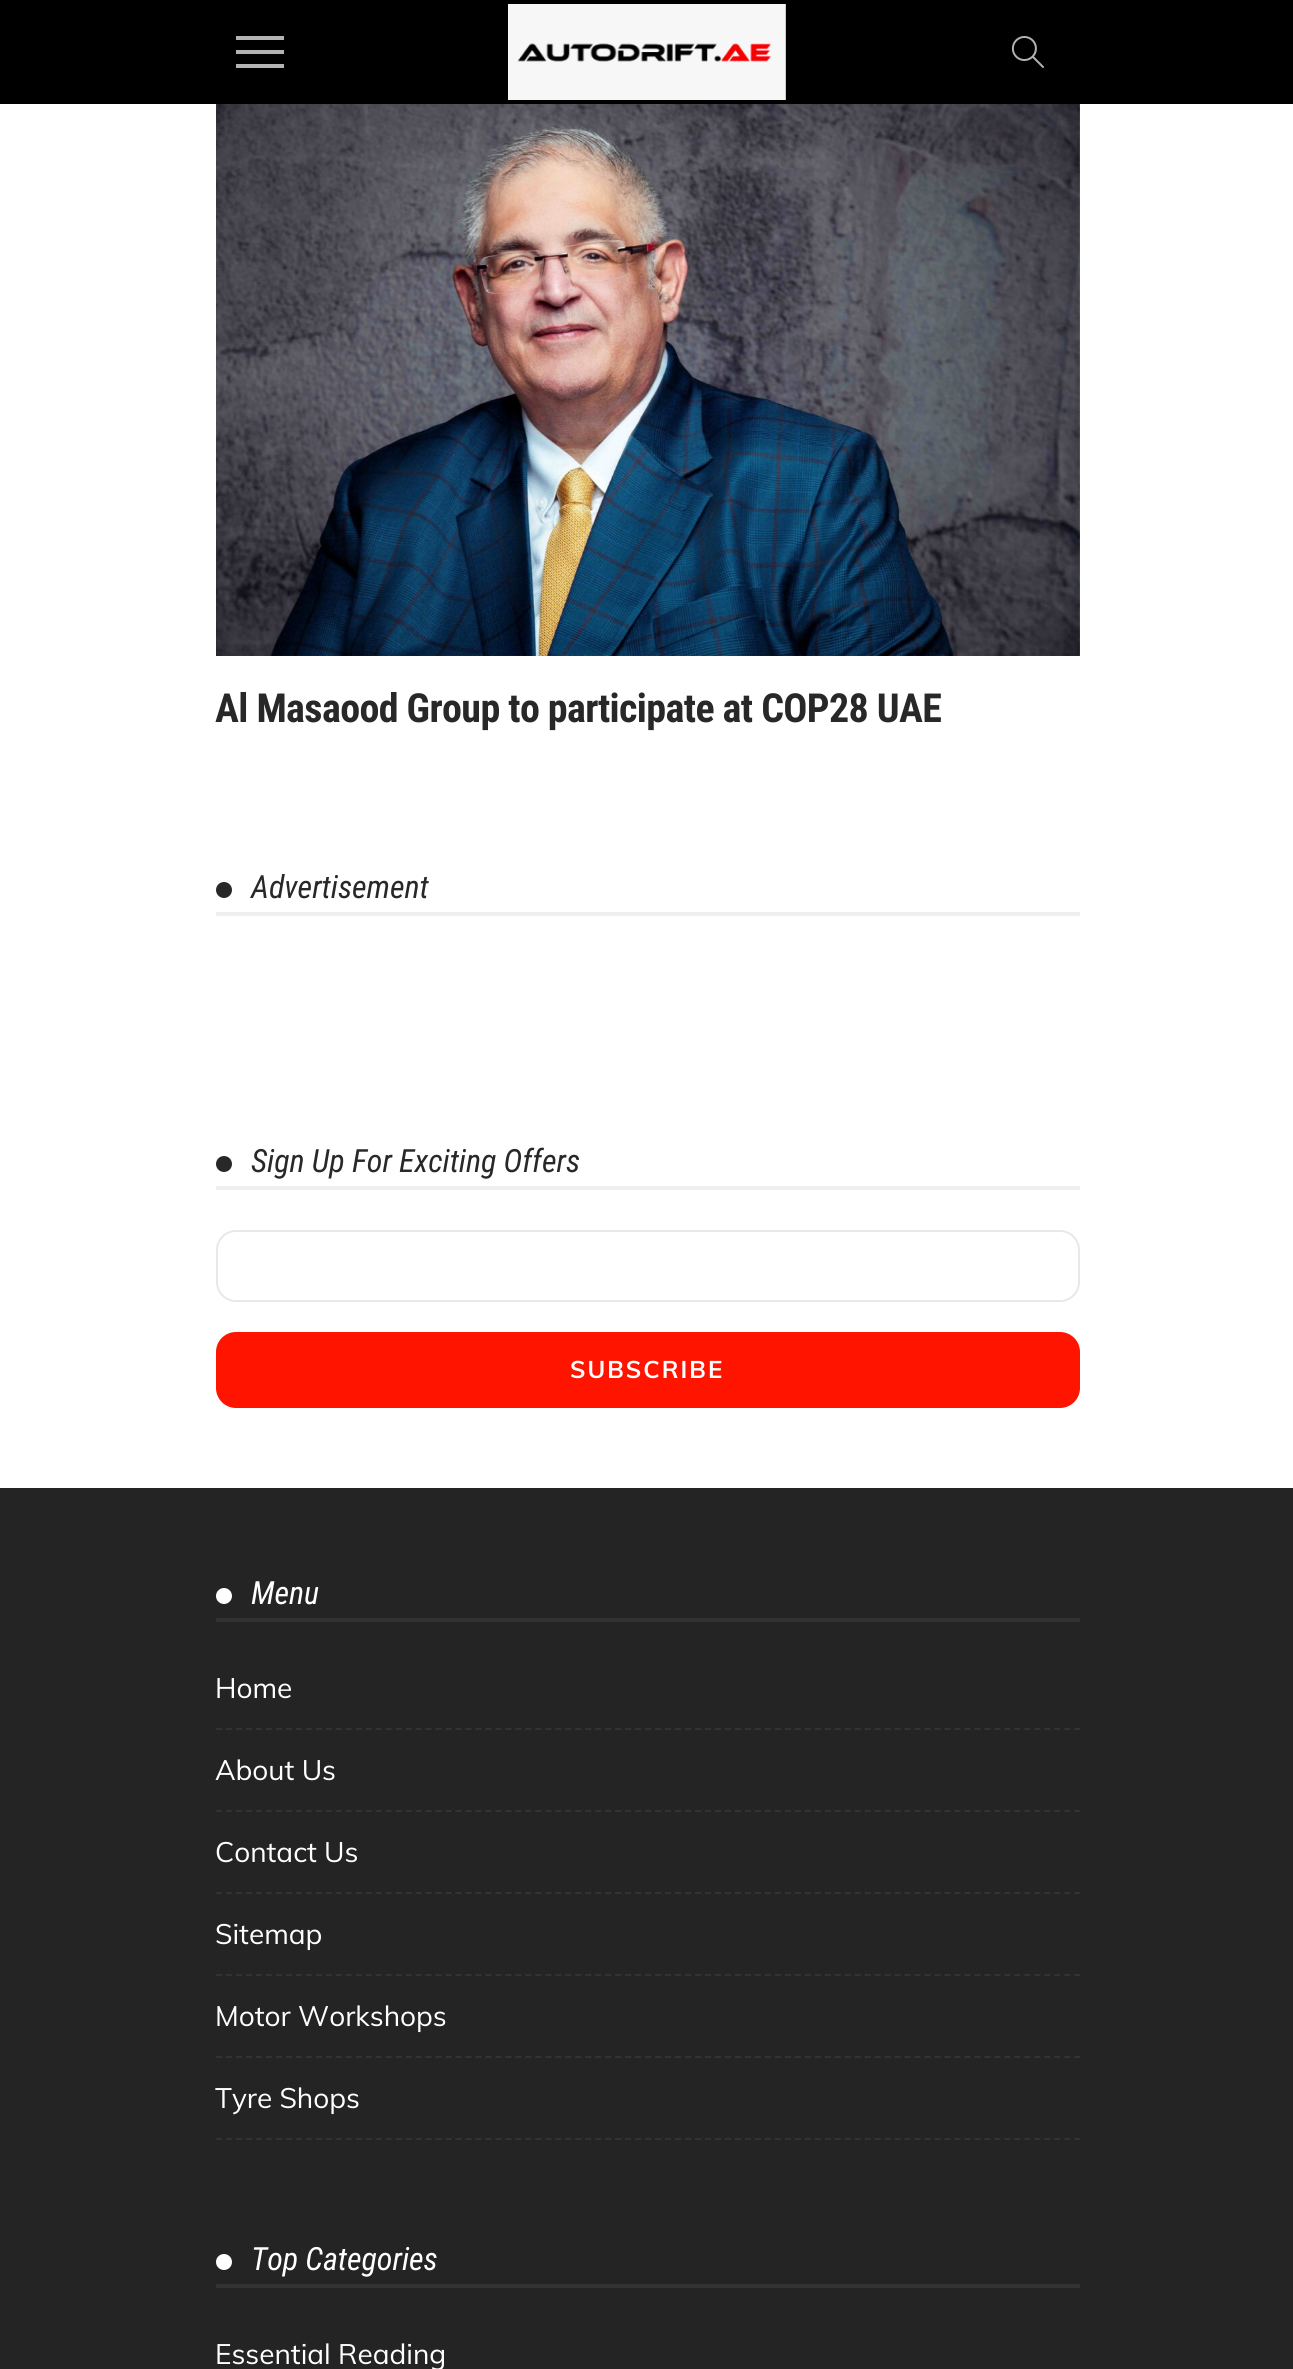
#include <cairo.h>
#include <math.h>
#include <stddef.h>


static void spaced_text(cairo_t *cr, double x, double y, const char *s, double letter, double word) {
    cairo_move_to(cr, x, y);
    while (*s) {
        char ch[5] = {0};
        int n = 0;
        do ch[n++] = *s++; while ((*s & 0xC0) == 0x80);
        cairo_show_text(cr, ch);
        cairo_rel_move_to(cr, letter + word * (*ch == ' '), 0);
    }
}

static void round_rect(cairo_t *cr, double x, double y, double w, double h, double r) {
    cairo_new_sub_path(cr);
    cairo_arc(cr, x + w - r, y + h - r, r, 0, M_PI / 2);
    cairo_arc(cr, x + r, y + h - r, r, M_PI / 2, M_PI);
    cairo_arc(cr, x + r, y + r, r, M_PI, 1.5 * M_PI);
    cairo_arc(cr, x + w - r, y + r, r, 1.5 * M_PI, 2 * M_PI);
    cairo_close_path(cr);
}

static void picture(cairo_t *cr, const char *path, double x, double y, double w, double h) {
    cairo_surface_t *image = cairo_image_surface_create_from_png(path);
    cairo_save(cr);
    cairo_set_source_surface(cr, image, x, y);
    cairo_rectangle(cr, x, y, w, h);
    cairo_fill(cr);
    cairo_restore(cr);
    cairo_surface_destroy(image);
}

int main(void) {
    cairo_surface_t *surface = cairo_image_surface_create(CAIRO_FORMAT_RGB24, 1293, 2369);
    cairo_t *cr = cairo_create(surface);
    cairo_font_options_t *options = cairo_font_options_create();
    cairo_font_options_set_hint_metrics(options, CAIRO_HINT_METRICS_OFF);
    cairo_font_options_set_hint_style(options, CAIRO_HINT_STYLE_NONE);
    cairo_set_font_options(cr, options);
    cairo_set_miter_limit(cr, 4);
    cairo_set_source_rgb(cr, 1, 1, 1);
    cairo_paint(cr);
    cairo_set_source_rgb(cr, 0, 0, 0);
    cairo_rectangle(cr, 0, 0, 1293, 104);
    cairo_fill(cr);
    cairo_set_source_rgb(cr, 0.702, 0.702, 0.702);
    cairo_rectangle(cr, 236, 50, 48, 4);
    cairo_fill(cr);
    cairo_rectangle(cr, 236, 36, 48, 4);
    cairo_fill(cr);
    cairo_rectangle(cr, 236, 64, 48, 4);
    cairo_fill(cr);
    picture(cr, "img1.png", 508, 4, 278, 96);
    picture(cr, "img2.png", 1011, 36, 33, 32);
    picture(cr, "img3.png", 216, 104, 864, 552);
    cairo_select_font_face(cr, "Roboto Condensed", CAIRO_FONT_SLANT_NORMAL, CAIRO_FONT_WEIGHT_BOLD);
    cairo_set_font_size(cr, 40);
    cairo_set_source_rgb(cr, 0.157, 0.157, 0.157);
    spaced_text(cr, 215, 722, "Al Masaood Group to participate at COP28 UAE", -0.6, 0);
    cairo_set_source_rgb(cr, 0.937, 0.937, 0.937);
    cairo_rectangle(cr, 216, 912, 864, 4);
    cairo_fill(cr);
    cairo_set_source_rgb(cr, 0.157, 0.157, 0.157);
    cairo_arc(cr, 224, 890, 8, 0, 2 * M_PI);
    cairo_fill(cr);
    cairo_select_font_face(cr, "Roboto Condensed", CAIRO_FONT_SLANT_ITALIC, CAIRO_FONT_WEIGHT_NORMAL);
    cairo_set_font_size(cr, 32);
    cairo_move_to(cr, 251, 898);
    cairo_show_text(cr, "Advertisement");
    cairo_set_source_rgb(cr, 0.937, 0.937, 0.937);
    cairo_rectangle(cr, 216, 1186, 864, 4);
    cairo_fill(cr);
    cairo_set_source_rgb(cr, 0.157, 0.157, 0.157);
    cairo_arc(cr, 224, 1164, 8, 0, 2 * M_PI);
    cairo_fill(cr);
    cairo_move_to(cr, 251, 1172);
    cairo_show_text(cr, "Sign Up For Exciting Offers");
    round_rect(cr, 217, 1231, 862, 70, 19);
    cairo_set_source_rgb(cr, 0.91, 0.91, 0.91);
    cairo_stroke(cr);
    cairo_set_source_rgb(cr, 1, 0.082, 0);
    round_rect(cr, 216, 1332, 864, 76, 20);
    cairo_fill(cr);
    cairo_select_font_face(cr, "Muli", CAIRO_FONT_SLANT_NORMAL, CAIRO_FONT_WEIGHT_BOLD);
    cairo_set_font_size(cr, 24);
    cairo_set_source_rgb(cr, 1, 1, 1);
    spaced_text(cr, 570, 1378, "SUBSCRIBE", 2, 0);
    cairo_set_source_rgb(cr, 0.141, 0.141, 0.141);
    cairo_rectangle(cr, 0, 1488, 1293, 881);
    cairo_fill(cr);
    cairo_set_source_rgb(cr, 0.2, 0.2, 0.2);
    cairo_rectangle(cr, 216, 1618, 864, 4);
    cairo_fill(cr);
    cairo_set_source_rgb(cr, 1, 1, 1);
    cairo_arc(cr, 224, 1596, 8, 0, 2 * M_PI);
    cairo_fill(cr);
    cairo_select_font_face(cr, "Roboto Condensed", CAIRO_FONT_SLANT_ITALIC, CAIRO_FONT_WEIGHT_NORMAL);
    cairo_set_font_size(cr, 32);
    cairo_move_to(cr, 251, 1604);
    cairo_show_text(cr, "Menu");
    cairo_new_path(cr);
    cairo_move_to(cr, 216, 1729);
    cairo_line_to(cr, 1080, 1729);
    cairo_set_source_rgb(cr, 0.2, 0.2, 0.2);
    cairo_set_dash(cr, (double[]){6, 3.98}, 2, 0);
    cairo_stroke(cr);
    cairo_select_font_face(cr, "Muli", CAIRO_FONT_SLANT_NORMAL, CAIRO_FONT_WEIGHT_NORMAL);
    cairo_set_font_size(cr, 28);
    cairo_set_source_rgb(cr, 1, 1, 1);
    cairo_move_to(cr, 215, 1698);
    cairo_show_text(cr, "Home");
    cairo_new_path(cr);
    cairo_move_to(cr, 216, 1811);
    cairo_line_to(cr, 1080, 1811);
    cairo_set_source_rgb(cr, 0.2, 0.2, 0.2);
    cairo_stroke(cr);
    cairo_set_source_rgb(cr, 1, 1, 1);
    cairo_move_to(cr, 215, 1780);
    cairo_show_text(cr, "About Us");
    cairo_new_path(cr);
    cairo_move_to(cr, 216, 1893);
    cairo_line_to(cr, 1080, 1893);
    cairo_set_source_rgb(cr, 0.2, 0.2, 0.2);
    cairo_stroke(cr);
    cairo_set_source_rgb(cr, 1, 1, 1);
    cairo_move_to(cr, 215, 1862);
    cairo_show_text(cr, "Contact Us");
    cairo_new_path(cr);
    cairo_move_to(cr, 216, 1975);
    cairo_line_to(cr, 1080, 1975);
    cairo_set_source_rgb(cr, 0.2, 0.2, 0.2);
    cairo_stroke(cr);
    cairo_set_source_rgb(cr, 1, 1, 1);
    cairo_move_to(cr, 215, 1944);
    cairo_show_text(cr, "Sitemap");
    cairo_new_path(cr);
    cairo_move_to(cr, 216, 2057);
    cairo_line_to(cr, 1080, 2057);
    cairo_set_source_rgb(cr, 0.2, 0.2, 0.2);
    cairo_stroke(cr);
    cairo_set_source_rgb(cr, 1, 1, 1);
    cairo_move_to(cr, 215, 2026);
    cairo_show_text(cr, "Motor Workshops");
    cairo_new_path(cr);
    cairo_move_to(cr, 216, 2139);
    cairo_line_to(cr, 1080, 2139);
    cairo_set_source_rgb(cr, 0.2, 0.2, 0.2);
    cairo_stroke(cr);
    cairo_set_source_rgb(cr, 1, 1, 1);
    cairo_move_to(cr, 215, 2108);
    cairo_show_text(cr, "Tyre Shops");
    cairo_set_source_rgb(cr, 0.2, 0.2, 0.2);
    cairo_rectangle(cr, 216, 2284, 864, 4);
    cairo_fill(cr);
    cairo_set_source_rgb(cr, 1, 1, 1);
    cairo_arc(cr, 224, 2262, 8, 0, 2 * M_PI);
    cairo_fill(cr);
    cairo_select_font_face(cr, "Roboto Condensed", CAIRO_FONT_SLANT_ITALIC, CAIRO_FONT_WEIGHT_NORMAL);
    cairo_set_font_size(cr, 32);
    cairo_move_to(cr, 251, 2270);
    cairo_show_text(cr, "Top Categories");
    cairo_select_font_face(cr, "Muli", CAIRO_FONT_SLANT_NORMAL, CAIRO_FONT_WEIGHT_NORMAL);
    cairo_set_font_size(cr, 28);
    cairo_move_to(cr, 215, 2364);
    cairo_show_text(cr, "Essential Reading");
    cairo_surface_write_to_png(surface, "page.png");
    cairo_font_options_destroy(options);
    cairo_destroy(cr);
    cairo_surface_destroy(surface);
    return 0;
}
